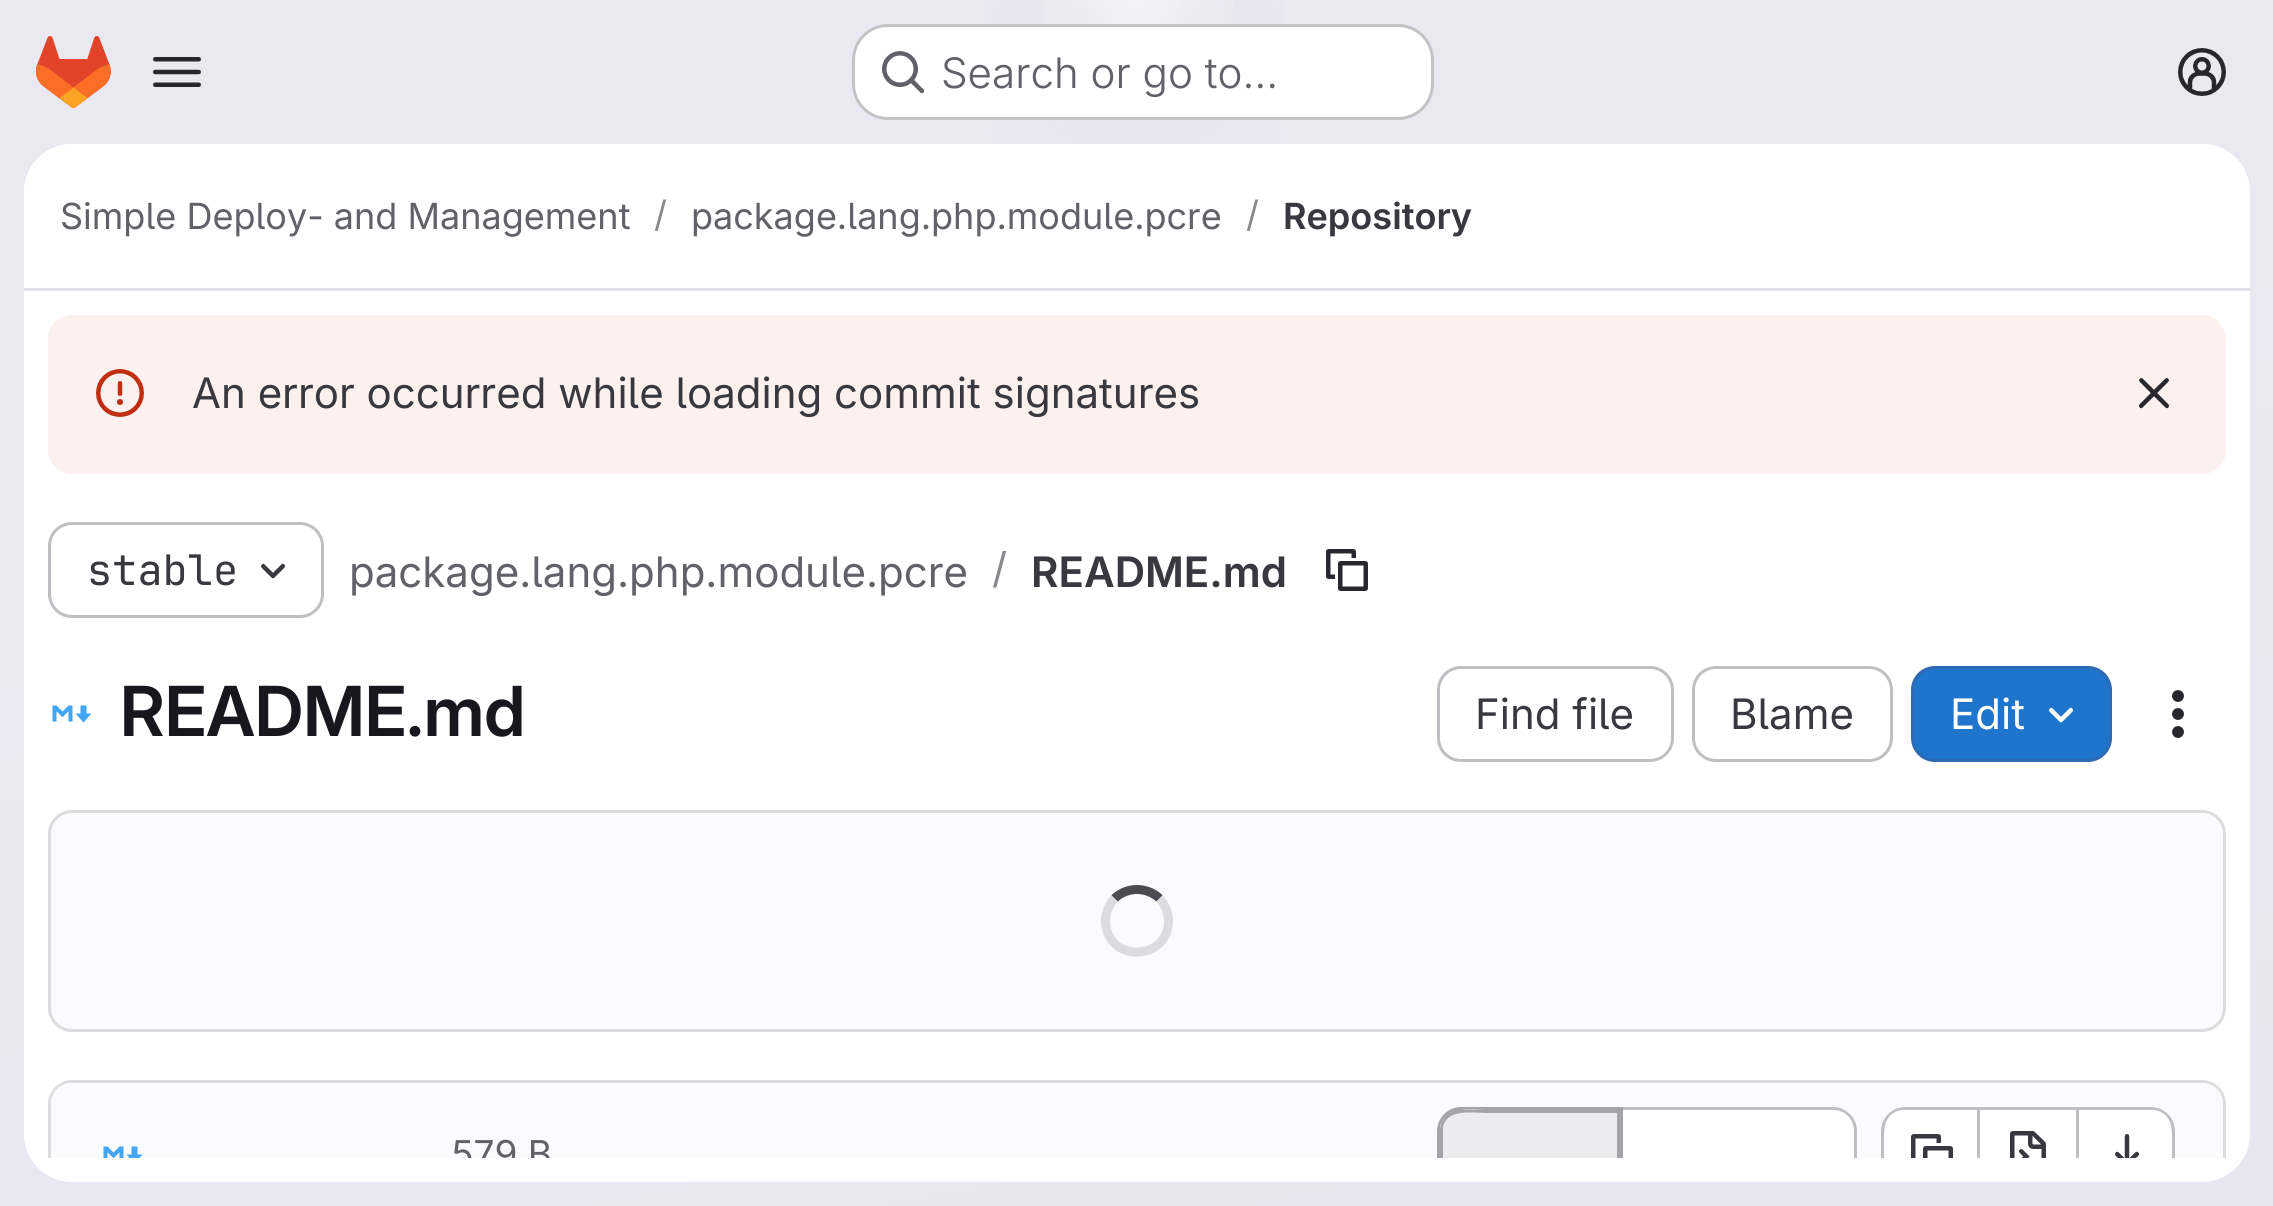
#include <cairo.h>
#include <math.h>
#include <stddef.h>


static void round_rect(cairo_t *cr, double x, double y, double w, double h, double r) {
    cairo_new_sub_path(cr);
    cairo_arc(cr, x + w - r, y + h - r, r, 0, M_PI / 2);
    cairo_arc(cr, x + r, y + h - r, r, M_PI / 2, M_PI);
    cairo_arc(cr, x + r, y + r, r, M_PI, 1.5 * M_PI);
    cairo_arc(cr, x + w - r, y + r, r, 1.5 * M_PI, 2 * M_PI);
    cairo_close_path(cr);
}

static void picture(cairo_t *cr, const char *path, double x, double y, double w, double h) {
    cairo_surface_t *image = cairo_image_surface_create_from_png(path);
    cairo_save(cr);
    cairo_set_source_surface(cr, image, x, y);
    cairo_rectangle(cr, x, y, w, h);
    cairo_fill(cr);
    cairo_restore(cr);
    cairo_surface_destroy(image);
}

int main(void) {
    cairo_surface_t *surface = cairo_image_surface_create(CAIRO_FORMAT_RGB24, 2273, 1206);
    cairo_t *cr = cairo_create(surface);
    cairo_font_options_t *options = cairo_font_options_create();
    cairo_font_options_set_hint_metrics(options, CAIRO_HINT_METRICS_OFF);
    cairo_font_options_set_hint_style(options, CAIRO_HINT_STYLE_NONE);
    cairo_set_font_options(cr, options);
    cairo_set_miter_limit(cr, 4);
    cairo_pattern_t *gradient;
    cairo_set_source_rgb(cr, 1, 1, 1);
    cairo_paint(cr);
    gradient = cairo_pattern_create_linear(1274, 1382, 1000, -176);
    cairo_pattern_add_color_stop_rgba(gradient, 0, 0.91, 0.902, 0.941, 1);
    cairo_pattern_add_color_stop_rgba(gradient, 0.7, 0.918, 0.914, 0.949, 1);
    cairo_set_source(cr, gradient);
    cairo_pattern_destroy(gradient);
    cairo_rectangle(cr, 0, 0, 2273, 1206);
    cairo_fill(cr);
    gradient = cairo_pattern_create_radial(0, 0, 0, 0, 0, 1);
    cairo_pattern_set_matrix(gradient, &(cairo_matrix_t){1.0 / 1137, 0, 0, 1.0 / 1206, -1.0 * 1137 / 1137, -1.0 * 0 / 1206});
    cairo_pattern_add_color_stop_rgba(gradient, 0, 0.894, 0.886, 0.929, 1);
    cairo_pattern_add_color_stop_rgba(gradient, 0.18, 0.894, 0.886, 0.929, 0);
    cairo_set_source(cr, gradient);
    cairo_pattern_destroy(gradient);
    cairo_rectangle(cr, 991, 0, 292, 144);
    cairo_fill(cr);
    gradient = cairo_pattern_create_radial(0, 0, 0, 0, 0, 1);
    cairo_pattern_set_matrix(gradient, &(cairo_matrix_t){1.0 / 1137, 0, 0, 1.0 / 1206, -1.0 * 1137 / 1137, -1.0 * 0 / 1206});
    cairo_pattern_add_color_stop_rgba(gradient, 0, 0.894, 0.886, 0.925, 1);
    cairo_pattern_add_color_stop_rgba(gradient, 0.13, 0.894, 0.886, 0.925, 0);
    cairo_set_source(cr, gradient);
    cairo_pattern_destroy(gradient);
    cairo_rectangle(cr, 1076, 6, 122, 62);
    cairo_fill(cr);
    gradient = cairo_pattern_create_radial(1137, 0, 0, 1137, 0, 1657);
    cairo_pattern_add_color_stop_rgba(gradient, 0, 1, 1, 1, 0.6);
    cairo_pattern_add_color_stop_rgba(gradient, 0.07, 1, 1, 1, 0);
    cairo_set_source(cr, gradient);
    cairo_pattern_destroy(gradient);
    cairo_rectangle(cr, 1041, 0, 192, 24);
    cairo_fill(cr);
    picture(cr, "img1.png", 36, 36, 75, 72);
    picture(cr, "img2.png", 153, 57, 48, 30);
    cairo_set_source_rgb(cr, 1, 1, 1);
    round_rect(cr, 852, 24, 582, 96, 36);
    cairo_fill(cr);
    round_rect(cr, 853.5, 25.5, 579, 93, 34.5);
    cairo_set_source_rgba(cr, 0.02, 0.02, 0.024, 0.24);
    cairo_set_line_width(cr, 3);
    cairo_stroke(cr);
    picture(cr, "img3.png", 882, 51, 43, 43);
    cairo_select_font_face(cr, "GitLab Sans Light", CAIRO_FONT_SLANT_NORMAL, CAIRO_FONT_WEIGHT_NORMAL);
    cairo_set_font_size(cr, 42);
    cairo_set_source_rgb(cr, 0.384, 0.38, 0.408);
    cairo_move_to(cr, 941, 88);
    cairo_show_text(cr, "Search or go to…");
    picture(cr, "img4.png", 2178, 48, 48, 48);
    cairo_set_source_rgb(cr, 1, 1, 1);
    round_rect(cr, 24, 144, 2226, 1038, 48);
    cairo_fill(cr);
    cairo_new_path(cr);
    cairo_move_to(cr, 72, 144);
    cairo_line_to(cr, 2202, 144);
    cairo_curve_to(cr, 2228.5, 144, 2250, 165.5, 2250, 192);
    cairo_line_to(cr, 2250, 291);
    cairo_line_to(cr, 24, 291);
    cairo_line_to(cr, 24, 192);
    cairo_curve_to(cr, 24, 165.5, 45.5, 144, 72, 144);
    cairo_close_path(cr);
    cairo_fill(cr);
    cairo_set_source_rgb(cr, 0.882, 0.875, 0.925);
    cairo_rectangle(cr, 24, 288, 2226, 3);
    cairo_fill(cr);
    cairo_select_font_face(cr, "GitLab Sans", CAIRO_FONT_SLANT_NORMAL, CAIRO_FONT_WEIGHT_NORMAL);
    cairo_set_font_size(cr, 36);
    cairo_set_source_rgb(cr, 0.384, 0.38, 0.408);
    cairo_move_to(cr, 60, 229);
    cairo_show_text(cr, "Simple Deploy- and Management");
    cairo_set_source_rgb(cr, 0.537, 0.533, 0.553);
    cairo_move_to(cr, 654, 227);
    cairo_show_text(cr, "/");
    cairo_set_source_rgb(cr, 0.384, 0.38, 0.408);
    cairo_move_to(cr, 691, 229);
    cairo_show_text(cr, "package.lang.php.module.pcre");
    cairo_set_source_rgb(cr, 0.537, 0.533, 0.553);
    cairo_move_to(cr, 1246, 227);
    cairo_show_text(cr, "/");
    cairo_select_font_face(cr, "GitLab Sans SemiBold", CAIRO_FONT_SLANT_NORMAL, CAIRO_FONT_WEIGHT_NORMAL);
    cairo_set_source_rgb(cr, 0.227, 0.22, 0.247);
    cairo_move_to(cr, 1283, 229);
    cairo_show_text(cr, "Repository");
    cairo_set_source_rgb(cr, 0.988, 0.945, 0.937);
    round_rect(cr, 48, 315, 2178, 159, 24);
    cairo_fill(cr);
    picture(cr, "img5.png", 96, 369, 48, 48);
    cairo_select_font_face(cr, "GitLab Sans", CAIRO_FONT_SLANT_NORMAL, CAIRO_FONT_WEIGHT_NORMAL);
    cairo_set_font_size(cr, 42);
    cairo_set_source_rgb(cr, 0.227, 0.22, 0.247);
    cairo_move_to(cr, 192, 408);
    cairo_show_text(cr, "An error occurred while loading commit signatures");
    picture(cr, "img6.png", 2138, 378, 32, 31);
    round_rect(cr, 49.5, 523.5, 273, 93, 22.5);
    cairo_set_source_rgb(cr, 0.749, 0.749, 0.765);
    cairo_stroke(cr);
    cairo_select_font_face(cr, "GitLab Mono", CAIRO_FONT_SLANT_NORMAL, CAIRO_FONT_WEIGHT_NORMAL);
    cairo_set_source_rgb(cr, 0.227, 0.22, 0.247);
    cairo_move_to(cr, 87, 585);
    cairo_show_text(cr, "stable");
    picture(cr, "img7.png", 260, 563, 26, 16);
    cairo_select_font_face(cr, "GitLab Sans", CAIRO_FONT_SLANT_NORMAL, CAIRO_FONT_WEIGHT_NORMAL);
    cairo_set_source_rgb(cr, 0.384, 0.38, 0.408);
    cairo_move_to(cr, 349, 587);
    cairo_show_text(cr, "package.lang.php.module.pcre");
    cairo_set_source_rgb(cr, 0.537, 0.533, 0.553);
    cairo_move_to(cr, 992, 583);
    cairo_show_text(cr, "/");
    cairo_select_font_face(cr, "GitLab Sans SemiBold", CAIRO_FONT_SLANT_NORMAL, CAIRO_FONT_WEIGHT_NORMAL);
    cairo_set_source_rgb(cr, 0.227, 0.22, 0.247);
    cairo_move_to(cr, 1031, 587);
    cairo_show_text(cr, "README.md");
    picture(cr, "img8.png", 1326, 549, 42, 42);
    picture(cr, "img9.png", 52, 705, 40, 18);
    cairo_select_font_face(cr, "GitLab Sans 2 SemiBold", CAIRO_FONT_SLANT_NORMAL, CAIRO_FONT_WEIGHT_NORMAL);
    cairo_set_font_size(cr, 69);
    cairo_set_source_rgb(cr, 0.094, 0.09, 0.114);
    cairo_move_to(cr, 120, 736);
    cairo_show_text(cr, "README.md");
    round_rect(cr, 1438.5, 667.5, 234, 93, 22.5);
    cairo_set_source_rgb(cr, 0.749, 0.749, 0.765);
    cairo_stroke(cr);
    cairo_select_font_face(cr, "GitLab Sans", CAIRO_FONT_SLANT_NORMAL, CAIRO_FONT_WEIGHT_NORMAL);
    cairo_set_font_size(cr, 42);
    cairo_set_source_rgb(cr, 0.227, 0.22, 0.247);
    cairo_move_to(cr, 1475, 729);
    cairo_show_text(cr, "Find file");
    round_rect(cr, 1693.5, 667.5, 198, 93, 22.5);
    cairo_set_source_rgb(cr, 0.749, 0.749, 0.765);
    cairo_stroke(cr);
    cairo_set_source_rgb(cr, 0.227, 0.22, 0.247);
    cairo_move_to(cr, 1730, 729);
    cairo_show_text(cr, "Blame");
    cairo_set_source_rgb(cr, 0.122, 0.459, 0.796);
    round_rect(cr, 1912.5, 667.5, 198, 93, 22.5);
    cairo_fill_preserve(cr);
    cairo_set_source_rgb(cr, 0.184, 0.408, 0.706);
    cairo_stroke(cr);
    cairo_set_source_rgb(cr, 1, 1, 1);
    cairo_move_to(cr, 1950, 729);
    cairo_show_text(cr, "Edit");
    picture(cr, "img10.png", 2048, 707, 26, 16);
    picture(cr, "img11.png", 2172, 690, 12, 48);
    cairo_set_source_rgb(cr, 0.984, 0.98, 0.992);
    round_rect(cr, 49.5, 811.5, 2175, 219, 22.5);
    cairo_fill_preserve(cr);
    cairo_set_source_rgb(cr, 0.863, 0.863, 0.871);
    cairo_stroke(cr);
    cairo_new_path(cr);
    cairo_move_to(cr, 1114.5, 898.5);
    cairo_curve_to(cr, 1127, 886.5, 1147, 886.5, 1159.5, 898.5);
    cairo_set_source_rgb(cr, 0.298, 0.294, 0.318);
    cairo_set_line_width(cr, 9);
    cairo_stroke(cr);
    cairo_new_path(cr);
    cairo_move_to(cr, 1159.5, 898.5);
    cairo_curve_to(cr, 1165, 904.5, 1168.5, 912.5, 1168.5, 921);
    cairo_curve_to(cr, 1168.5, 958.5, 1113.5, 964, 1106, 927);
    cairo_curve_to(cr, 1104, 917, 1107.5, 906, 1114.5, 898.5);
    cairo_set_source_rgb(cr, 0.863, 0.863, 0.871);
    cairo_stroke(cr);
    cairo_save(cr);
    cairo_rectangle(cr, 24, 291, 2226, 867);
    cairo_clip(cr);
    cairo_new_path(cr);
    cairo_move_to(cr, 72, 1080);
    cairo_curve_to(cr, 59, 1080, 48, 1091, 48, 1104);
    cairo_line_to(cr, 48, 1176);
    cairo_line_to(cr, 51, 1177);
    cairo_line_to(cr, 51, 1104);
    cairo_curve_to(cr, 51, 1092, 60, 1083, 72, 1083);
    cairo_line_to(cr, 2202, 1083);
    cairo_curve_to(cr, 2214, 1083, 2223, 1092, 2223, 1104);
    cairo_line_to(cr, 2223, 1177);
    cairo_line_to(cr, 2226, 1176);
    cairo_line_to(cr, 2226, 1104);
    cairo_curve_to(cr, 2226, 1091, 2215, 1080, 2202, 1080);
    cairo_close_path(cr);
    cairo_fill(cr);
    cairo_restore(cr);
    cairo_set_source_rgb(cr, 0.984, 0.98, 0.992);
    cairo_new_path(cr);
    cairo_move_to(cr, 72, 1083);
    cairo_line_to(cr, 2202, 1083);
    cairo_curve_to(cr, 2213.5, 1083, 2223, 1092.5, 2223, 1104);
    cairo_line_to(cr, 2223, 1158);
    cairo_line_to(cr, 51, 1158);
    cairo_line_to(cr, 51, 1104);
    cairo_curve_to(cr, 51, 1092.5, 60.5, 1083, 72, 1083);
    cairo_close_path(cr);
    cairo_fill(cr);
    picture(cr, "img12.png", 103, 1146, 40, 12);
    cairo_save(cr);
    cairo_rectangle(cr, 24, 291, 2226, 867);
    cairo_clip(cr);
    cairo_set_font_size(cr, 37);
    cairo_set_source_rgb(cr, 0.384, 0.38, 0.408);
    cairo_move_to(cr, 451, 1167);
    cairo_show_text(cr, "579 B");
    cairo_restore(cr);
    cairo_set_source_rgb(cr, 0.925, 0.925, 0.937);
    cairo_new_path(cr);
    cairo_move_to(cr, 1461, 1110);
    cairo_line_to(cr, 1620, 1110);
    cairo_line_to(cr, 1620, 1158);
    cairo_line_to(cr, 1440, 1158);
    cairo_line_to(cr, 1440, 1131);
    cairo_curve_to(cr, 1440, 1119.5, 1449.5, 1110, 1461, 1110);
    cairo_close_path(cr);
    cairo_fill(cr);
    cairo_save(cr);
    cairo_rectangle(cr, 24, 291, 2226, 867);
    cairo_clip(cr);
    cairo_set_source_rgb(cr, 0.643, 0.639, 0.659);
    cairo_new_path(cr);
    cairo_move_to(cr, 1461, 1110);
    cairo_curve_to(cr, 1449, 1110, 1440, 1119, 1440, 1131);
    cairo_line_to(cr, 1440, 1179);
    cairo_line_to(cr, 1440, 1182);
    cairo_line_to(cr, 1443, 1182);
    cairo_line_to(cr, 1443, 1127);
    cairo_curve_to(cr, 1447, 1108, 1474, 1113, 1487, 1113);
    cairo_line_to(cr, 1617, 1113);
    cairo_line_to(cr, 1617, 1182);
    cairo_line_to(cr, 1620, 1182);
    cairo_line_to(cr, 1620, 1110);
    cairo_close_path(cr);
    cairo_fill(cr);
    cairo_new_path(cr);
    cairo_move_to(cr, 1461, 1107);
    cairo_line_to(cr, 1620, 1107);
    cairo_line_to(cr, 1620, 1110);
    cairo_line_to(cr, 1488, 1110);
    cairo_curve_to(cr, 1472, 1110, 1445, 1105, 1440, 1127);
    cairo_line_to(cr, 1440, 1182);
    cairo_line_to(cr, 1437, 1182);
    cairo_line_to(cr, 1437, 1179);
    cairo_line_to(cr, 1437, 1131);
    cairo_curve_to(cr, 1437, 1118, 1448, 1107, 1461, 1107);
    cairo_close_path(cr);
    cairo_fill(cr);
    cairo_restore(cr);
    cairo_set_source_rgb(cr, 1, 1, 1);
    cairo_new_path(cr);
    cairo_move_to(cr, 1623, 1110);
    cairo_line_to(cr, 1833, 1110);
    cairo_curve_to(cr, 1844.5, 1110, 1854, 1119.5, 1854, 1131);
    cairo_line_to(cr, 1854, 1158);
    cairo_line_to(cr, 1623, 1158);
    cairo_close_path(cr);
    cairo_fill(cr);
    cairo_save(cr);
    cairo_rectangle(cr, 24, 291, 2226, 867);
    cairo_clip(cr);
    cairo_set_source_rgb(cr, 0.749, 0.749, 0.765);
    cairo_new_path(cr);
    cairo_move_to(cr, 1623, 1107);
    cairo_line_to(cr, 1833, 1107);
    cairo_curve_to(cr, 1846, 1107, 1857, 1118, 1857, 1131);
    cairo_line_to(cr, 1857, 1179);
    cairo_line_to(cr, 1857, 1182);
    cairo_line_to(cr, 1854, 1182);
    cairo_line_to(cr, 1854, 1131);
    cairo_curve_to(cr, 1854, 1119, 1845, 1110, 1833, 1110);
    cairo_line_to(cr, 1623, 1110);
    cairo_close_path(cr);
    cairo_fill(cr);
    cairo_restore(cr);
    cairo_set_source_rgb(cr, 0.643, 0.639, 0.659);
    cairo_rectangle(cr, 1620, 1107, 3, 51);
    cairo_fill(cr);
    cairo_set_source_rgb(cr, 1, 1, 1);
    cairo_new_path(cr);
    cairo_move_to(cr, 1905, 1110);
    cairo_line_to(cr, 1977, 1110);
    cairo_line_to(cr, 1977, 1158);
    cairo_line_to(cr, 1884, 1158);
    cairo_line_to(cr, 1884, 1131);
    cairo_curve_to(cr, 1884, 1119.5, 1893.5, 1110, 1905, 1110);
    cairo_close_path(cr);
    cairo_fill(cr);
    cairo_save(cr);
    cairo_rectangle(cr, 24, 291, 2226, 867);
    cairo_clip(cr);
    cairo_set_source_rgb(cr, 0.749, 0.749, 0.765);
    cairo_new_path(cr);
    cairo_move_to(cr, 1905, 1107);
    cairo_line_to(cr, 1977, 1107);
    cairo_line_to(cr, 1977, 1110);
    cairo_line_to(cr, 1901, 1110);
    cairo_curve_to(cr, 1882, 1114, 1884, 1132, 1884, 1147);
    cairo_line_to(cr, 1884, 1182);
    cairo_line_to(cr, 1881, 1182);
    cairo_line_to(cr, 1881, 1131);
    cairo_curve_to(cr, 1881, 1118, 1892, 1107, 1905, 1107);
    cairo_close_path(cr);
    cairo_fill(cr);
    cairo_restore(cr);
    picture(cr, "img13.png", 1911, 1134, 42, 24);
    cairo_rectangle(cr, 1980, 1110, 96, 48);
    cairo_fill(cr);
    cairo_set_source_rgb(cr, 0.749, 0.749, 0.765);
    cairo_rectangle(cr, 1980, 1107, 96, 3);
    cairo_fill(cr);
    cairo_rectangle(cr, 1977, 1107, 3, 51);
    cairo_fill(cr);
    picture(cr, "img14.png", 2010, 1131, 36, 27);
    cairo_set_source_rgb(cr, 1, 1, 1);
    cairo_new_path(cr);
    cairo_move_to(cr, 2079, 1110);
    cairo_line_to(cr, 2151, 1110);
    cairo_curve_to(cr, 2162.5, 1110, 2172, 1119.5, 2172, 1131);
    cairo_line_to(cr, 2172, 1158);
    cairo_line_to(cr, 2079, 1158);
    cairo_close_path(cr);
    cairo_fill(cr);
    cairo_save(cr);
    cairo_rectangle(cr, 24, 291, 2226, 867);
    cairo_clip(cr);
    cairo_set_source_rgb(cr, 0.749, 0.749, 0.765);
    cairo_new_path(cr);
    cairo_move_to(cr, 2079, 1107);
    cairo_line_to(cr, 2151, 1107);
    cairo_curve_to(cr, 2164, 1107, 2175, 1118, 2175, 1131);
    cairo_line_to(cr, 2175, 1182);
    cairo_line_to(cr, 2172, 1182);
    cairo_line_to(cr, 2172, 1147);
    cairo_curve_to(cr, 2172, 1132, 2174, 1114, 2155, 1110);
    cairo_line_to(cr, 2079, 1110);
    cairo_close_path(cr);
    cairo_fill(cr);
    cairo_restore(cr);
    cairo_set_source_rgb(cr, 0.749, 0.749, 0.765);
    cairo_rectangle(cr, 2076, 1107, 3, 51);
    cairo_fill(cr);
    picture(cr, "img15.png", 2115, 1134, 24, 24);
    cairo_surface_write_to_png(surface, "page.png");
    cairo_font_options_destroy(options);
    cairo_destroy(cr);
    cairo_surface_destroy(surface);
    return 0;
}
